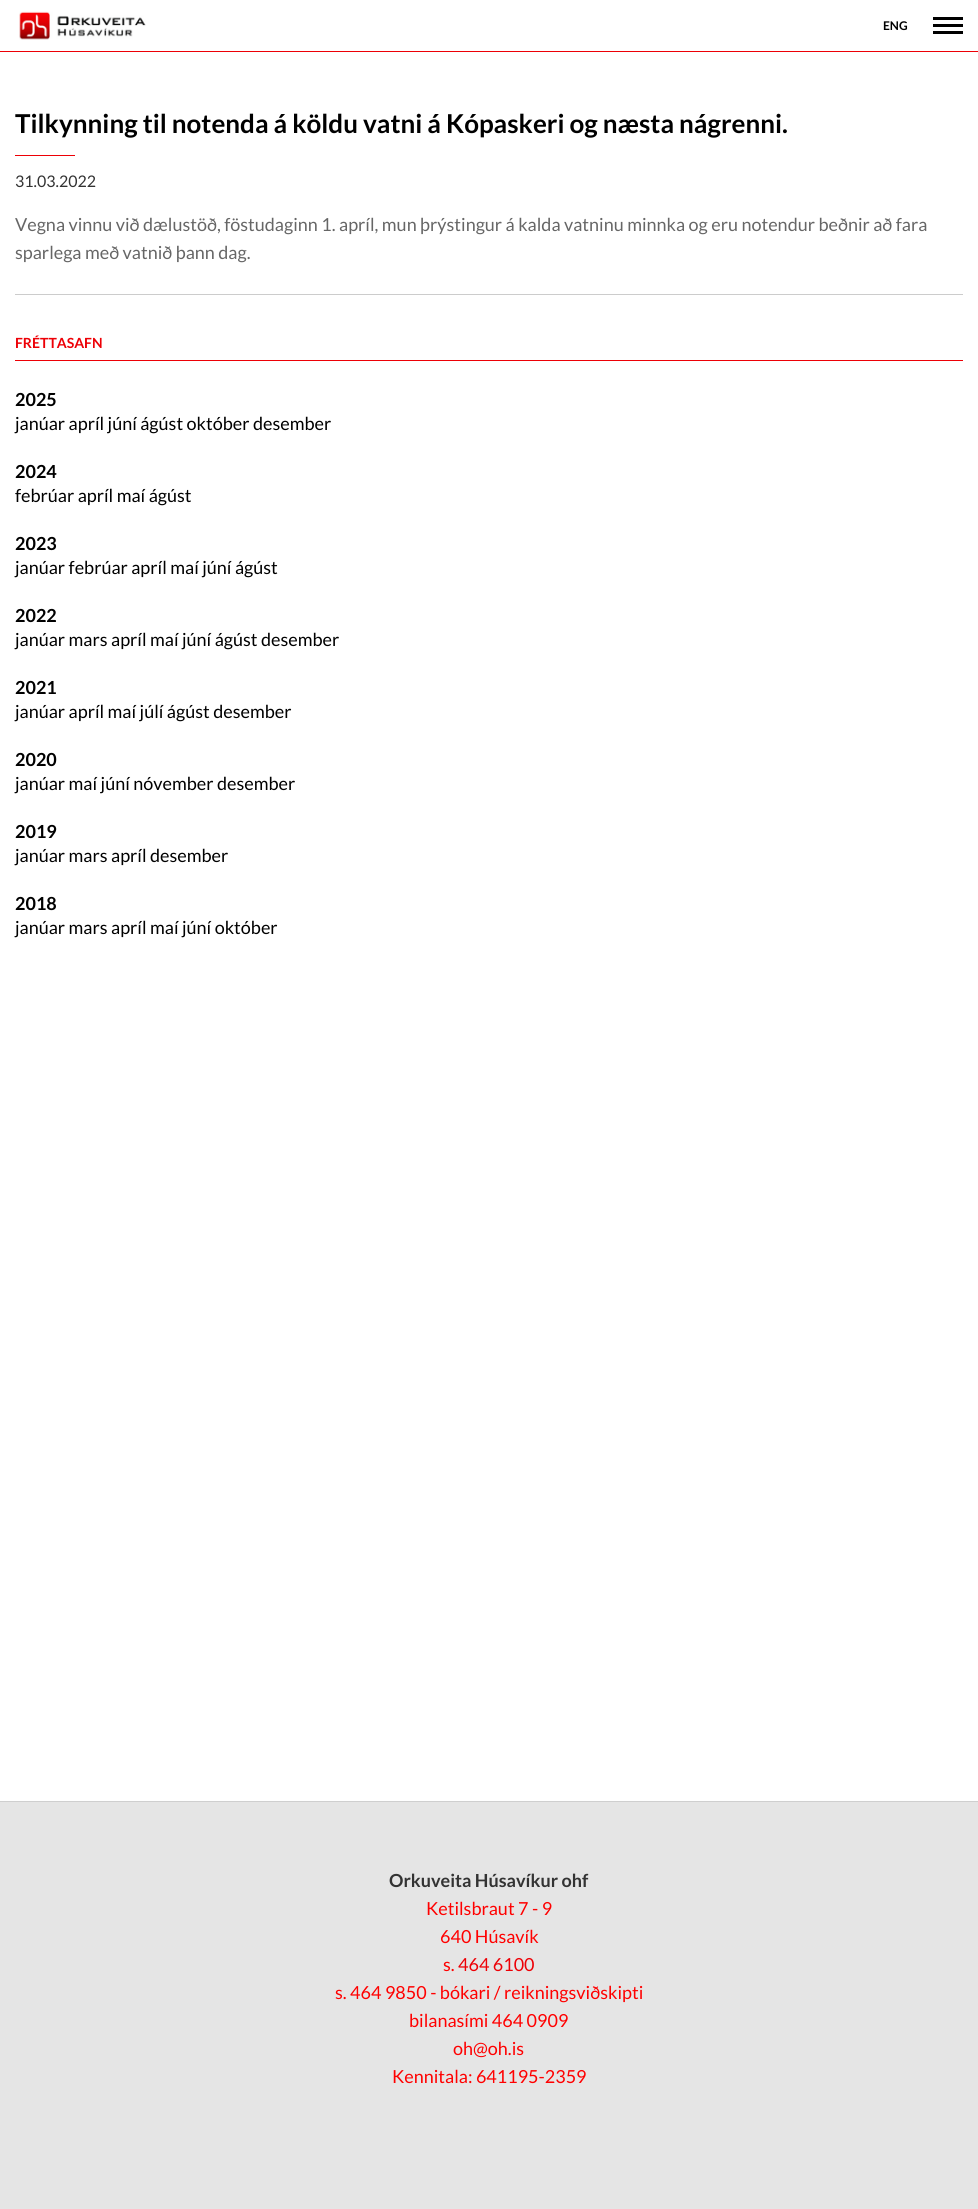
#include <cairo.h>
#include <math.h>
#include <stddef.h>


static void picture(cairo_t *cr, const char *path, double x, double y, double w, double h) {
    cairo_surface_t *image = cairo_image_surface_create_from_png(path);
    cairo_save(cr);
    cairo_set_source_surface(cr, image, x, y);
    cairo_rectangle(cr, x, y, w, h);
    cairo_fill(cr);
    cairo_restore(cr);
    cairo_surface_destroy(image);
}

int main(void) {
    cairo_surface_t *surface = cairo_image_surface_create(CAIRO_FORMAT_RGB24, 978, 2209);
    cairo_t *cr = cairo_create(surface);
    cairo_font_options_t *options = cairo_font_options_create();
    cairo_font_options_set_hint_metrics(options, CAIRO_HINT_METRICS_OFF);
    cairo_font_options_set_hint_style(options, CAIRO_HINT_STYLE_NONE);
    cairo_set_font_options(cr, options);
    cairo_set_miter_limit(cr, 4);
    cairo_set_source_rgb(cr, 1, 1, 1);
    cairo_paint(cr);
    cairo_set_source_rgb(cr, 0.929, 0, 0.024);
    cairo_rectangle(cr, 0, 51, 978, 1);
    cairo_fill(cr);
    picture(cr, "img1.png", 19, 11, 127, 29);
    cairo_select_font_face(cr, "Lato", CAIRO_FONT_SLANT_NORMAL, CAIRO_FONT_WEIGHT_BOLD);
    cairo_set_font_size(cr, 12);
    cairo_set_source_rgb(cr, 0, 0, 0);
    cairo_move_to(cr, 883, 30);
    cairo_show_text(cr, "ENG");
    cairo_rectangle(cr, 933, 17, 30, 3);
    cairo_fill(cr);
    cairo_rectangle(cr, 933, 24, 30, 3);
    cairo_fill(cr);
    cairo_rectangle(cr, 933, 31, 30, 3);
    cairo_fill(cr);
    cairo_set_source_rgb(cr, 0.8, 0.8, 0.8);
    cairo_rectangle(cr, 15, 294, 948, 1);
    cairo_fill(cr);
    cairo_set_font_size(cr, 26);
    cairo_set_source_rgb(cr, 0, 0, 0);
    cairo_move_to(cr, 15, 133);
    cairo_show_text(cr, "Tilkynning til notenda á köldu vatni á Kópaskeri og næsta nágrenni.");
    cairo_set_source_rgb(cr, 0.929, 0, 0.024);
    cairo_rectangle(cr, 15, 155, 60, 1);
    cairo_fill(cr);
    cairo_select_font_face(cr, "Lato", CAIRO_FONT_SLANT_NORMAL, CAIRO_FONT_WEIGHT_NORMAL);
    cairo_set_font_size(cr, 16);
    cairo_set_source_rgb(cr, 0.2, 0.2, 0.2);
    cairo_move_to(cr, 15, 187);
    cairo_show_text(cr, "31.03.2022");
    cairo_set_font_size(cr, 18);
    cairo_set_source_rgb(cr, 0.4, 0.4, 0.4);
    cairo_move_to(cr, 15, 231);
    cairo_show_text(cr, "Vegna vinnu við dælustöð, föstudaginn 1. apríl, mun þrýstingur á kalda vatninu minnka og eru notendur beðnir að fara");
    cairo_move_to(cr, 15, 259);
    cairo_show_text(cr, "sparlega með vatnið þann dag.");
    cairo_set_source_rgb(cr, 0.929, 0, 0.024);
    cairo_rectangle(cr, 15, 360, 948, 1);
    cairo_fill(cr);
    cairo_select_font_face(cr, "Lato", CAIRO_FONT_SLANT_NORMAL, CAIRO_FONT_WEIGHT_BOLD);
    cairo_set_font_size(cr, 14);
    cairo_move_to(cr, 15, 348);
    cairo_show_text(cr, "FRÉTTASAFN");
    cairo_set_font_size(cr, 18);
    cairo_set_source_rgb(cr, 0, 0, 0);
    cairo_move_to(cr, 15, 406);
    cairo_show_text(cr, "2025");
    cairo_select_font_face(cr, "Lato", CAIRO_FONT_SLANT_NORMAL, CAIRO_FONT_WEIGHT_NORMAL);
    cairo_move_to(cr, 15, 430);
    cairo_show_text(cr, "janúar apríl júní ágúst október desember");
    cairo_select_font_face(cr, "Lato", CAIRO_FONT_SLANT_NORMAL, CAIRO_FONT_WEIGHT_BOLD);
    cairo_move_to(cr, 15, 478);
    cairo_show_text(cr, "2024");
    cairo_select_font_face(cr, "Lato", CAIRO_FONT_SLANT_NORMAL, CAIRO_FONT_WEIGHT_NORMAL);
    cairo_move_to(cr, 15, 502);
    cairo_show_text(cr, "febrúar apríl maí ágúst");
    cairo_select_font_face(cr, "Lato", CAIRO_FONT_SLANT_NORMAL, CAIRO_FONT_WEIGHT_BOLD);
    cairo_move_to(cr, 15, 550);
    cairo_show_text(cr, "2023");
    cairo_select_font_face(cr, "Lato", CAIRO_FONT_SLANT_NORMAL, CAIRO_FONT_WEIGHT_NORMAL);
    cairo_move_to(cr, 15, 574);
    cairo_show_text(cr, "janúar febrúar apríl maí júní ágúst");
    cairo_select_font_face(cr, "Lato", CAIRO_FONT_SLANT_NORMAL, CAIRO_FONT_WEIGHT_BOLD);
    cairo_move_to(cr, 15, 622);
    cairo_show_text(cr, "2022");
    cairo_select_font_face(cr, "Lato", CAIRO_FONT_SLANT_NORMAL, CAIRO_FONT_WEIGHT_NORMAL);
    cairo_move_to(cr, 15, 646);
    cairo_show_text(cr, "janúar mars apríl maí júní ágúst desember");
    cairo_select_font_face(cr, "Lato", CAIRO_FONT_SLANT_NORMAL, CAIRO_FONT_WEIGHT_BOLD);
    cairo_move_to(cr, 15, 694);
    cairo_show_text(cr, "2021");
    cairo_select_font_face(cr, "Lato", CAIRO_FONT_SLANT_NORMAL, CAIRO_FONT_WEIGHT_NORMAL);
    cairo_move_to(cr, 15, 718);
    cairo_show_text(cr, "janúar apríl maí júlí ágúst desember");
    cairo_select_font_face(cr, "Lato", CAIRO_FONT_SLANT_NORMAL, CAIRO_FONT_WEIGHT_BOLD);
    cairo_move_to(cr, 15, 766);
    cairo_show_text(cr, "2020");
    cairo_select_font_face(cr, "Lato", CAIRO_FONT_SLANT_NORMAL, CAIRO_FONT_WEIGHT_NORMAL);
    cairo_move_to(cr, 15, 790);
    cairo_show_text(cr, "janúar maí júní nóvember desember");
    cairo_select_font_face(cr, "Lato", CAIRO_FONT_SLANT_NORMAL, CAIRO_FONT_WEIGHT_BOLD);
    cairo_move_to(cr, 15, 838);
    cairo_show_text(cr, "2019");
    cairo_select_font_face(cr, "Lato", CAIRO_FONT_SLANT_NORMAL, CAIRO_FONT_WEIGHT_NORMAL);
    cairo_move_to(cr, 15, 862);
    cairo_show_text(cr, "janúar mars apríl desember");
    cairo_select_font_face(cr, "Lato", CAIRO_FONT_SLANT_NORMAL, CAIRO_FONT_WEIGHT_BOLD);
    cairo_move_to(cr, 15, 910);
    cairo_show_text(cr, "2018");
    cairo_select_font_face(cr, "Lato", CAIRO_FONT_SLANT_NORMAL, CAIRO_FONT_WEIGHT_NORMAL);
    cairo_move_to(cr, 15, 934);
    cairo_show_text(cr, "janúar mars apríl maí júní október");
    cairo_set_source_rgb(cr, 0.898, 0.898, 0.898);
    cairo_rectangle(cr, 0, 1802, 978, 407);
    cairo_fill(cr);
    cairo_set_source_rgb(cr, 0.812, 0.812, 0.812);
    cairo_rectangle(cr, 0, 1801, 978, 1);
    cairo_fill(cr);
    cairo_select_font_face(cr, "Lato", CAIRO_FONT_SLANT_NORMAL, CAIRO_FONT_WEIGHT_BOLD);
    cairo_set_source_rgb(cr, 0.2, 0.2, 0.2);
    cairo_move_to(cr, 389, 1887);
    cairo_show_text(cr, "Orkuveita Húsavíkur ohf");
    cairo_select_font_face(cr, "Lato", CAIRO_FONT_SLANT_NORMAL, CAIRO_FONT_WEIGHT_NORMAL);
    cairo_set_source_rgb(cr, 1, 0, 0);
    cairo_move_to(cr, 426, 1915);
    cairo_show_text(cr, "Ketilsbraut 7 - 9");
    cairo_move_to(cr, 440, 1943);
    cairo_show_text(cr, "640 Húsavík");
    cairo_move_to(cr, 443, 1971);
    cairo_show_text(cr, "s.");
    cairo_set_source_rgb(cr, 0.929, 0, 0.024);
    cairo_move_to(cr, 458, 1971);
    cairo_show_text(cr, "464 6100");
    cairo_set_source_rgb(cr, 1, 0, 0);
    cairo_move_to(cr, 335, 1999);
    cairo_show_text(cr, "s. 464 9850 - bókari / reikningsviðskipti");
    cairo_move_to(cr, 409, 2027);
    cairo_show_text(cr, "bilanasími 464 0909");
    cairo_move_to(cr, 453, 2055);
    cairo_show_text(cr, "oh@oh.is");
    cairo_move_to(cr, 392, 2083);
    cairo_show_text(cr, "Kennitala: 641195-2359");
    cairo_surface_write_to_png(surface, "page.png");
    cairo_font_options_destroy(options);
    cairo_destroy(cr);
    cairo_surface_destroy(surface);
    return 0;
}
